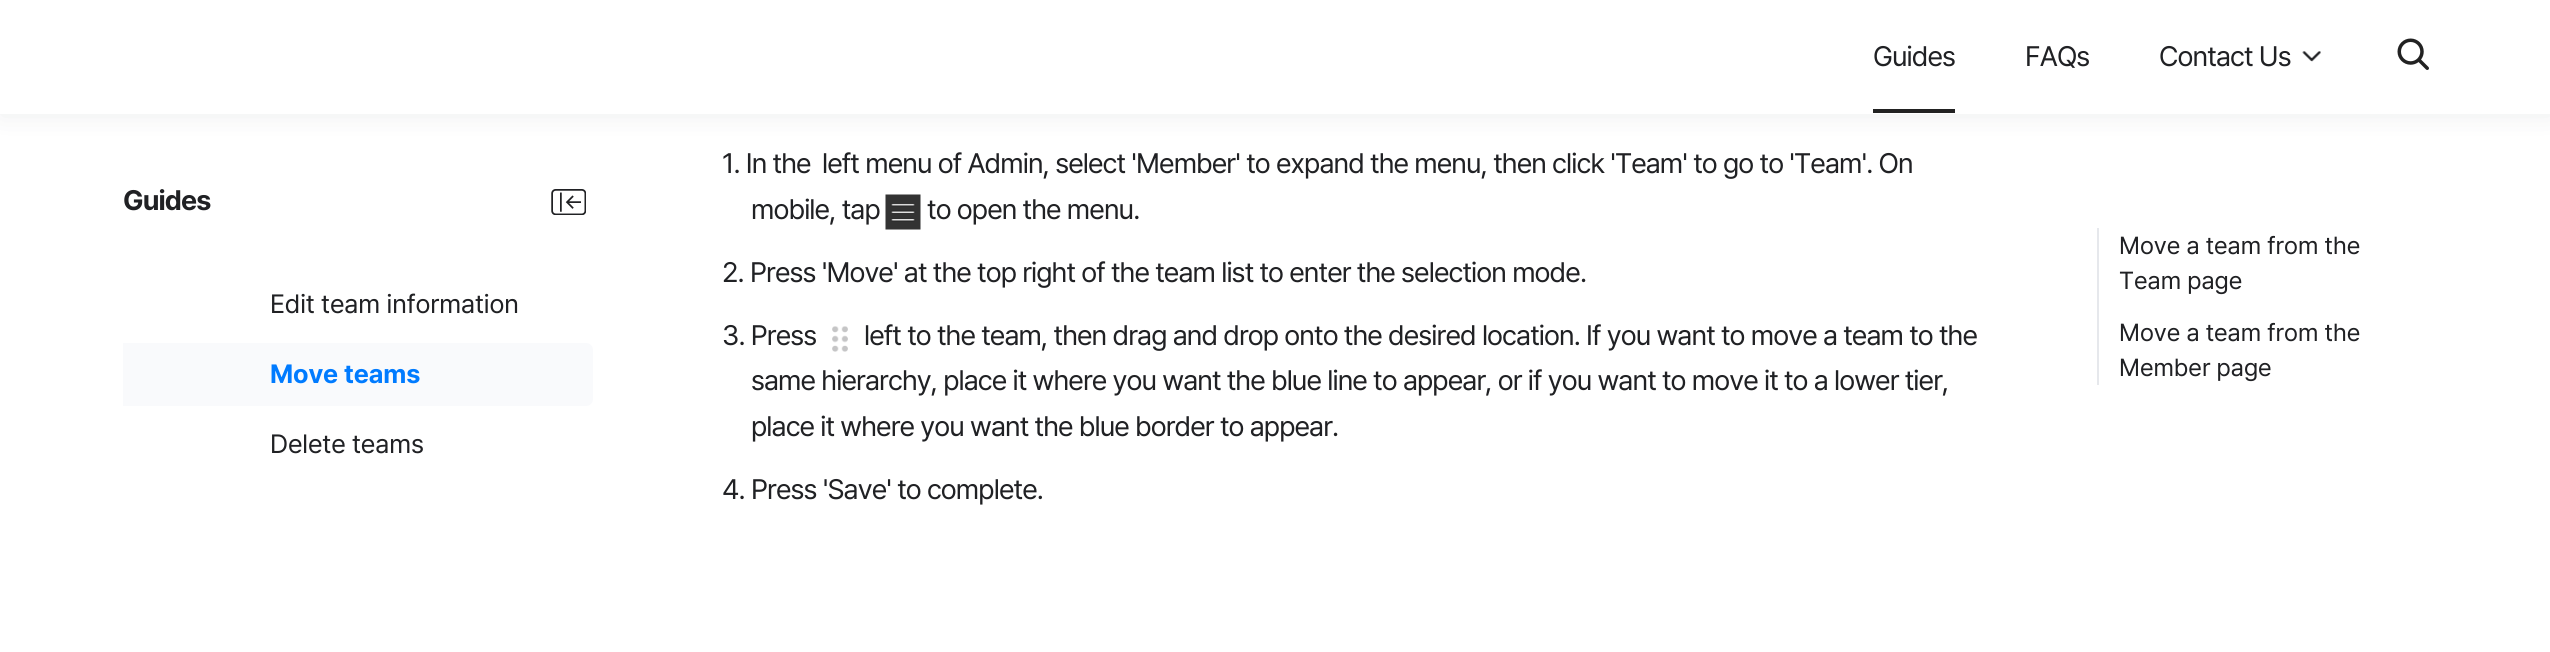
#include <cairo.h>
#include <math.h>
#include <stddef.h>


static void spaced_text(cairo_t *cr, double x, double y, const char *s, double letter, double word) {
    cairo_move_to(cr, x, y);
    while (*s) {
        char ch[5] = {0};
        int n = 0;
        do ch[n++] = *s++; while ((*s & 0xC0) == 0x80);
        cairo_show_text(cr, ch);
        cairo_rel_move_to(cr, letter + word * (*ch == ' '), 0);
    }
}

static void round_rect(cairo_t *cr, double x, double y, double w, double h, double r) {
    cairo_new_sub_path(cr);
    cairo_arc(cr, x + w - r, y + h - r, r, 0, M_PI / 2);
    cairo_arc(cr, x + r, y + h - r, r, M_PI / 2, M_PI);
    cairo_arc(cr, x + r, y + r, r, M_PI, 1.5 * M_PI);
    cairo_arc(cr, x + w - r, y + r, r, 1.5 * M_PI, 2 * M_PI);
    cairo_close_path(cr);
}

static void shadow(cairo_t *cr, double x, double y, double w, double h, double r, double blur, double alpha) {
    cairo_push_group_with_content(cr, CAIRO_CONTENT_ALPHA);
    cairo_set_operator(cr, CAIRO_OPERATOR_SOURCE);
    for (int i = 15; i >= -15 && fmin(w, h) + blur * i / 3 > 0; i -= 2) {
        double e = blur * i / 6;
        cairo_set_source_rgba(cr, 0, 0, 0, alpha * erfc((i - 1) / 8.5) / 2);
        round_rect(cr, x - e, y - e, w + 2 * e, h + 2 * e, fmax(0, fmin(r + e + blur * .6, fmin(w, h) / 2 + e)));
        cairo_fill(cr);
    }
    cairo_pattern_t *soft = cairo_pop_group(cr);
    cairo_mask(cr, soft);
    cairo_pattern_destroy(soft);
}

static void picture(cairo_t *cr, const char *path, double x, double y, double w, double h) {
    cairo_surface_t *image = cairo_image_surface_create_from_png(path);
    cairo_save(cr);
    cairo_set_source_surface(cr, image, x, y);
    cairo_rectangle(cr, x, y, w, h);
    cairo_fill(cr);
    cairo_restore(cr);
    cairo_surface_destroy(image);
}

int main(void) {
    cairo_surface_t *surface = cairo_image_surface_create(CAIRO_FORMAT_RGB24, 2550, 652);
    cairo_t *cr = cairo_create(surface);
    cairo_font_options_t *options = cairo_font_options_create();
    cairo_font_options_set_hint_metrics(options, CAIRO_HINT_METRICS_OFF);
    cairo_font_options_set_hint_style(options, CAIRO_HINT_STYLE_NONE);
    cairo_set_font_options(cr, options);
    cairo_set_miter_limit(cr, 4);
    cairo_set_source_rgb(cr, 1, 1, 1);
    cairo_paint(cr);
    cairo_set_source_rgb(cr, 0.118, 0.161, 0.216);
    shadow(cr, 0, 2, 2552, 114, 0, 13, 0.08);
    cairo_set_source_rgb(cr, 1, 1, 1);
    cairo_rectangle(cr, 0, 0, 2550, 114);
    cairo_fill(cr);
    cairo_select_font_face(cr, "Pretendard", CAIRO_FONT_SLANT_NORMAL, CAIRO_FONT_WEIGHT_NORMAL);
    cairo_set_font_size(cr, 28);
    cairo_set_source_rgb(cr, 0.125, 0.129, 0.141);
    spaced_text(cr, 1873, 66, "Guides", -0.88, 0);
    cairo_set_source_rgb(cr, 0.133, 0.133, 0.133);
    cairo_rectangle(cr, 1873, 109, 82, 4);
    cairo_fill(cr);
    cairo_set_source_rgb(cr, 0.125, 0.129, 0.141);
    spaced_text(cr, 2025, 66, "FAQs", -0.88, 0);
    spaced_text(cr, 2159, 66, "Contact Us", -0.88, 0);
    picture(cr, "img1.png", 2302, 51, 19, 11);
    picture(cr, "img2.png", 2397, 38, 32, 32);
    cairo_select_font_face(cr, "Pretendard", CAIRO_FONT_SLANT_NORMAL, CAIRO_FONT_WEIGHT_BOLD);
    spaced_text(cr, 123, 210, "Guides", -0.88, 0);
    picture(cr, "img3.png", 551, 189, 35, 26);
    cairo_select_font_face(cr, "Pretendard", CAIRO_FONT_SLANT_NORMAL, CAIRO_FONT_WEIGHT_NORMAL);
    cairo_set_font_size(cr, 26.25);
    spaced_text(cr, 270, 313, "Edit team information", -0.1, 0);
    cairo_set_source_rgb(cr, 0.976, 0.98, 0.988);
    cairo_new_path(cr);
    cairo_move_to(cr, 123, 343);
    cairo_line_to(cr, 586, 343);
    cairo_curve_to(cr, 590, 343, 593, 346, 593, 350);
    cairo_line_to(cr, 593, 399);
    cairo_curve_to(cr, 593, 403, 590, 406, 586, 406);
    cairo_line_to(cr, 123, 406);
    cairo_close_path(cr);
    cairo_fill(cr);
    cairo_select_font_face(cr, "Pretendard", CAIRO_FONT_SLANT_NORMAL, CAIRO_FONT_WEIGHT_BOLD);
    cairo_set_source_rgb(cr, 0, 0.482, 1);
    spaced_text(cr, 270, 383, "Move teams", -0.1, 0);
    cairo_select_font_face(cr, "Pretendard", CAIRO_FONT_SLANT_NORMAL, CAIRO_FONT_WEIGHT_NORMAL);
    cairo_set_source_rgb(cr, 0.125, 0.129, 0.141);
    spaced_text(cr, 270, 453, "Delete teams", -0.1, 0);
    cairo_set_font_size(cr, 28);
    spaced_text(cr, 722, 173, "1. In the", -0.88, 0);
    spaced_text(cr, 822, 173, "left menu of Admin, select 'Member' to expand the menu, then click 'Team' to go to 'Team'. On", -0.88, 0);
    spaced_text(cr, 751, 219, "mobile, tap", -0.88, 0);
    picture(cr, "img4.png", 885, 194, 36, 36);
    spaced_text(cr, 927, 219, "to open the menu.", -0.88, 0);
    spaced_text(cr, 722, 282, "2. Press 'Move' at the top right of the team list to enter the selection mode.", -0.88, 0);
    spaced_text(cr, 722, 345, "3. Press", -0.88, 0);
    picture(cr, "img5.png", 832, 326, 16, 26);
    spaced_text(cr, 864, 345, "left to the team, then drag and drop onto the desired location. If you want to move a team to the", -0.88, 0);
    spaced_text(cr, 751, 390, "same hierarchy, place it where you want the blue line to appear, or if you want to move it to a lower tier,", -0.88, 0);
    spaced_text(cr, 751, 436, "place it where you want the blue border to appear.", -0.88, 0);
    spaced_text(cr, 722, 499, "4. Press 'Save' to complete.", -0.88, 0);
    cairo_set_source_rgb(cr, 0.902, 0.91, 0.922);
    cairo_rectangle(cr, 2097, 228, 2, 157);
    cairo_fill(cr);
    cairo_set_font_size(cr, 24.5);
    cairo_set_source_rgb(cr, 0.125, 0.129, 0.141);
    cairo_move_to(cr, 2119, 254);
    cairo_show_text(cr, "Move a team from the");
    cairo_move_to(cr, 2119, 289);
    cairo_show_text(cr, "Team page");
    cairo_move_to(cr, 2119, 341);
    cairo_show_text(cr, "Move a team from the");
    cairo_move_to(cr, 2119, 376);
    cairo_show_text(cr, "Member page");
    cairo_surface_write_to_png(surface, "page.png");
    cairo_font_options_destroy(options);
    cairo_destroy(cr);
    cairo_surface_destroy(surface);
    return 0;
}
